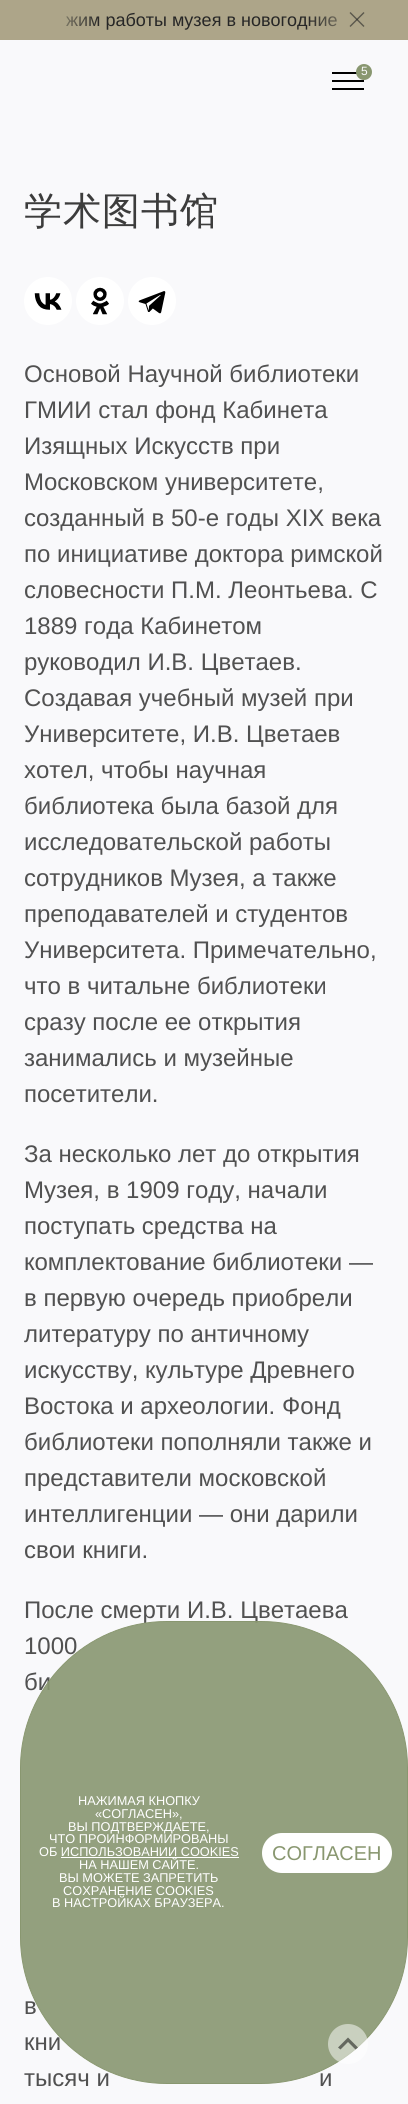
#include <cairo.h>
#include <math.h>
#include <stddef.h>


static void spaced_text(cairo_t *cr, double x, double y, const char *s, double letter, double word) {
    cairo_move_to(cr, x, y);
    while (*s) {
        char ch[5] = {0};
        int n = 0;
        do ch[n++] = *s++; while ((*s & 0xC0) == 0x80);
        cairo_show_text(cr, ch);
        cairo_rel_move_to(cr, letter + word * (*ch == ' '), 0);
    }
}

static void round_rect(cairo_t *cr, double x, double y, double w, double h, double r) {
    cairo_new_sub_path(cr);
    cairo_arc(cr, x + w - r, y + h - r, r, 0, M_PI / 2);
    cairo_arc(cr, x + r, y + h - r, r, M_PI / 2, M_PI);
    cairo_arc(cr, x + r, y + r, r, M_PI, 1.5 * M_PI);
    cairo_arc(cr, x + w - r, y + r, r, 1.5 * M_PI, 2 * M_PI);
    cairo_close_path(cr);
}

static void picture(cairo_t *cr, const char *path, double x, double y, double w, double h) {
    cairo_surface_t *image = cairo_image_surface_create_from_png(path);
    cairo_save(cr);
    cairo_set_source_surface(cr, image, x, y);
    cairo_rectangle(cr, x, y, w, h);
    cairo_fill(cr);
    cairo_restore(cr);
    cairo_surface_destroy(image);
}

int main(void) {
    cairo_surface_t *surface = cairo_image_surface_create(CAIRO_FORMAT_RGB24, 408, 2104);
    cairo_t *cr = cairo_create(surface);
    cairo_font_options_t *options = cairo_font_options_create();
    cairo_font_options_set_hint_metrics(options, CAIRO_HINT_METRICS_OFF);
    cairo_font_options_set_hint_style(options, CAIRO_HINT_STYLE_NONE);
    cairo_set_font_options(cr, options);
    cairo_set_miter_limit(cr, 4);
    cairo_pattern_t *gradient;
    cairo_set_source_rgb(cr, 0.976, 0.976, 0.984);
    cairo_paint(cr);
    cairo_set_source_rgb(cr, 0.678, 0.647, 0.537);
    cairo_rectangle(cr, 0, 0, 408, 40);
    cairo_fill(cr);
    cairo_select_font_face(cr, "Liberation Sans", CAIRO_FONT_SLANT_NORMAL, CAIRO_FONT_WEIGHT_NORMAL);
    cairo_set_font_size(cr, 18);
    cairo_set_source_rgb(cr, 0.149, 0.149, 0.149);
    cairo_move_to(cr, 66, 26);
    cairo_show_text(cr, "жим работы музея в новогодние");
    gradient = cairo_pattern_create_linear(100, 16, 44, 16);
    cairo_pattern_add_color_stop_rgba(gradient, 0, 0.678, 0.647, 0.537, 0);
    cairo_pattern_add_color_stop_rgba(gradient, 1, 0.678, 0.647, 0.537, 1);
    cairo_set_source(cr, gradient);
    cairo_pattern_destroy(gradient);
    cairo_rectangle(cr, 66, 16, 33, 10);
    cairo_fill(cr);
    gradient = cairo_pattern_create_linear(308, 20, 364, 20);
    cairo_pattern_add_color_stop_rgba(gradient, 0, 0.678, 0.647, 0.537, 0);
    cairo_pattern_add_color_stop_rgba(gradient, 1, 0.678, 0.647, 0.537, 1);
    cairo_set_source(cr, gradient);
    cairo_pattern_destroy(gradient);
    cairo_rectangle(cr, 309, 16, 28, 11);
    cairo_fill(cr);
    cairo_set_source_rgba(cr, 0.149, 0.149, 0.149, 0.6);
    cairo_new_path(cr);
    cairo_move_to(cr, 350.5, 12);
    cairo_line_to(cr, 364.5, 26);
    cairo_line_to(cr, 363.5, 27);
    cairo_line_to(cr, 349.5, 13);
    cairo_close_path(cr);
    cairo_fill(cr);
    cairo_new_path(cr);
    cairo_move_to(cr, 349.5, 26);
    cairo_line_to(cr, 363.5, 12);
    cairo_line_to(cr, 364.5, 13);
    cairo_line_to(cr, 350.5, 27);
    cairo_close_path(cr);
    cairo_fill(cr);
    cairo_set_source_rgb(cr, 0, 0, 0);
    cairo_rectangle(cr, 332, 72, 32, 2);
    cairo_fill(cr);
    cairo_set_source_rgb(cr, 0.537, 0.592, 0.439);
    cairo_arc(cr, 364, 72, 8, 0, 2 * M_PI);
    cairo_fill(cr);
    cairo_set_font_size(cr, 12);
    cairo_set_source_rgb(cr, 0.976, 0.976, 0.984);
    cairo_move_to(cr, 361, 75);
    cairo_show_text(cr, "5");
    cairo_set_source_rgb(cr, 0, 0, 0);
    cairo_rectangle(cr, 332, 80, 32, 2);
    cairo_fill(cr);
    cairo_rectangle(cr, 332, 88, 32, 2);
    cairo_fill(cr);
    cairo_set_font_size(cr, 24);
    cairo_set_source_rgb(cr, 0.318, 0.318, 0.318);
    cairo_move_to(cr, 24, 1618);
    cairo_show_text(cr, "После смерти И.В. Цветаева");
    cairo_move_to(cr, 24, 1654);
    cairo_show_text(cr, "1000");
    cairo_move_to(cr, 24, 1690);
    cairo_show_text(cr, "би");
    cairo_move_to(cr, 24, 2014);
    cairo_show_text(cr, "в");
    cairo_move_to(cr, 24, 2050);
    cairo_show_text(cr, "кни");
    cairo_move_to(cr, 24, 2086);
    cairo_show_text(cr, "тысяч и");
    cairo_move_to(cr, 319, 2086);
    cairo_show_text(cr, "и");
    cairo_set_source_rgba(cr, 0.537, 0.592, 0.439, 0.9);
    round_rect(cr, 20.5, 1621.5, 387, 462, 146.5);
    cairo_fill_preserve(cr);
    cairo_set_source_rgb(cr, 0.537, 0.592, 0.439);
    cairo_set_line_width(cr, 1);
    cairo_stroke(cr);
    cairo_set_source_rgba(cr, 1, 1, 1, 0.5);
    cairo_arc(cr, 348, 2044, 20, 0, 2 * M_PI);
    cairo_fill(cr);
    cairo_set_source_rgba(cr, 0, 0, 0, 0.5);
    cairo_new_path(cr);
    cairo_move_to(cr, 340.5, 2049.5);
    cairo_line_to(cr, 348, 2042);
    cairo_line_to(cr, 355.5, 2049.5);
    cairo_line_to(cr, 358, 2047.5);
    cairo_line_to(cr, 348, 2037.5);
    cairo_line_to(cr, 338, 2047.5);
    cairo_close_path(cr);
    cairo_fill(cr);
    cairo_select_font_face(cr, "WenQuanYi Zen Hei Medium", CAIRO_FONT_SLANT_NORMAL, CAIRO_FONT_WEIGHT_NORMAL);
    cairo_set_font_size(cr, 38);
    cairo_set_source_rgb(cr, 0.235, 0.235, 0.235);
    spaced_text(cr, 24, 224, "学术图书馆", 1, 0);
    cairo_set_source_rgb(cr, 1, 1, 1);
    cairo_new_path(cr);
    cairo_arc(cr, 48, 301, 24, 0, 2 * M_PI);
    cairo_fill(cr);
    picture(cr, "img1.png", 34, 293, 28, 17);
    cairo_arc(cr, 100, 301, 24, 0, 2 * M_PI);
    cairo_fill(cr);
    picture(cr, "img2.png", 91, 287, 18, 28);
    cairo_arc(cr, 152, 301, 24, 0, 2 * M_PI);
    cairo_fill(cr);
    picture(cr, "img3.png", 138, 291, 28, 23);
    cairo_select_font_face(cr, "Liberation Sans", CAIRO_FONT_SLANT_NORMAL, CAIRO_FONT_WEIGHT_NORMAL);
    cairo_set_font_size(cr, 24);
    cairo_set_source_rgb(cr, 0.318, 0.318, 0.318);
    cairo_move_to(cr, 24, 382);
    cairo_show_text(cr, "Основой Научной библиотеки");
    cairo_move_to(cr, 24, 418);
    cairo_show_text(cr, "ГМИИ стал фонд Кабинета");
    cairo_move_to(cr, 24, 454);
    cairo_show_text(cr, "Изящных Искусств при");
    cairo_move_to(cr, 24, 490);
    cairo_show_text(cr, "Московском университете,");
    cairo_move_to(cr, 24, 526);
    cairo_show_text(cr, "созданный в 50-е годы XIX века");
    cairo_move_to(cr, 24, 562);
    cairo_show_text(cr, "по инициативе доктора римской");
    cairo_move_to(cr, 24, 598);
    cairo_show_text(cr, "словесности П.М. Леонтьева. С");
    cairo_move_to(cr, 24, 634);
    cairo_show_text(cr, "1889 года Кабинетом");
    cairo_move_to(cr, 24, 670);
    cairo_show_text(cr, "руководил И.В. Цветаев.");
    cairo_move_to(cr, 24, 706);
    cairo_show_text(cr, "Создавая учебный музей при");
    cairo_move_to(cr, 24, 742);
    cairo_show_text(cr, "Университете, И.В. Цветаев");
    cairo_move_to(cr, 24, 778);
    cairo_show_text(cr, "хотел, чтобы научная");
    cairo_move_to(cr, 24, 814);
    cairo_show_text(cr, "библиотека была базой для");
    cairo_move_to(cr, 24, 850);
    cairo_show_text(cr, "исследовательской работы");
    cairo_move_to(cr, 24, 886);
    cairo_show_text(cr, "сотрудников Музея, а также");
    cairo_move_to(cr, 24, 922);
    cairo_show_text(cr, "преподавателей и студентов");
    cairo_move_to(cr, 24, 958);
    cairo_show_text(cr, "Университета. Примечательно,");
    cairo_move_to(cr, 24, 994);
    cairo_show_text(cr, "что в читальне библиотеки");
    cairo_move_to(cr, 24, 1030);
    cairo_show_text(cr, "сразу после ее открытия");
    cairo_move_to(cr, 24, 1066);
    cairo_show_text(cr, "занимались и музейные");
    cairo_move_to(cr, 24, 1102);
    cairo_show_text(cr, "посетители.");
    cairo_move_to(cr, 24, 1162);
    cairo_show_text(cr, "За несколько лет до открытия");
    cairo_move_to(cr, 24, 1198);
    cairo_show_text(cr, "Музея, в 1909 году, начали");
    cairo_move_to(cr, 24, 1234);
    cairo_show_text(cr, "поступать средства на");
    cairo_move_to(cr, 24, 1270);
    cairo_show_text(cr, "комплектование библиотеки —");
    cairo_move_to(cr, 24, 1306);
    cairo_show_text(cr, "в первую очередь приобрели");
    cairo_move_to(cr, 24, 1342);
    cairo_show_text(cr, "литературу по античному");
    cairo_move_to(cr, 24, 1378);
    cairo_show_text(cr, "искусству, культуре Древнего");
    cairo_move_to(cr, 24, 1414);
    cairo_show_text(cr, "Востока и археологии. Фонд");
    cairo_move_to(cr, 24, 1450);
    cairo_show_text(cr, "библиотеки пополняли также и");
    cairo_move_to(cr, 24, 1486);
    cairo_show_text(cr, "представители московской");
    cairo_move_to(cr, 24, 1522);
    cairo_show_text(cr, "интеллигенции — они дарили");
    cairo_move_to(cr, 24, 1558);
    cairo_show_text(cr, "свои книги.");
    cairo_set_font_size(cr, 12.75);
    cairo_set_source_rgb(cr, 1, 1, 1);
    cairo_move_to(cr, 78, 1805);
    cairo_show_text(cr, "НАЖИМАЯ КНОПКУ");
    cairo_move_to(cr, 95, 1818);
    cairo_show_text(cr, "«СОГЛАСЕН»,");
    cairo_move_to(cr, 68, 1831);
    cairo_show_text(cr, "ВЫ ПОДТВЕРЖДАЕТЕ,");
    cairo_move_to(cr, 49, 1843);
    cairo_show_text(cr, "ЧТО ПРОИНФОРМИРОВАНЫ");
    cairo_move_to(cr, 39, 1856);
    cairo_show_text(cr, "ОБ ИСПОЛЬЗОВАНИИ COOKIES");
    cairo_rectangle(cr, 61, 1857, 178, 1);
    cairo_fill(cr);
    cairo_move_to(cr, 79, 1869);
    cairo_show_text(cr, "НА НАШЕМ САЙТЕ.");
    cairo_move_to(cr, 59, 1882);
    cairo_show_text(cr, "ВЫ МОЖЕТЕ ЗАПРЕТИТЬ");
    cairo_move_to(cr, 63, 1895);
    cairo_show_text(cr, "СОХРАНЕНИЕ COOKIES");
    cairo_move_to(cr, 52, 1907);
    cairo_show_text(cr, "В НАСТРОЙКАХ БРАУЗЕРА.");
    round_rect(cr, 262, 1833, 130, 40, 20);
    cairo_fill(cr);
    cairo_set_font_size(cr, 20);
    cairo_set_source_rgb(cr, 0.537, 0.592, 0.439);
    cairo_move_to(cr, 272, 1860);
    cairo_show_text(cr, "СОГЛАСЕН");
    cairo_surface_write_to_png(surface, "page.png");
    cairo_font_options_destroy(options);
    cairo_destroy(cr);
    cairo_surface_destroy(surface);
    return 0;
}
